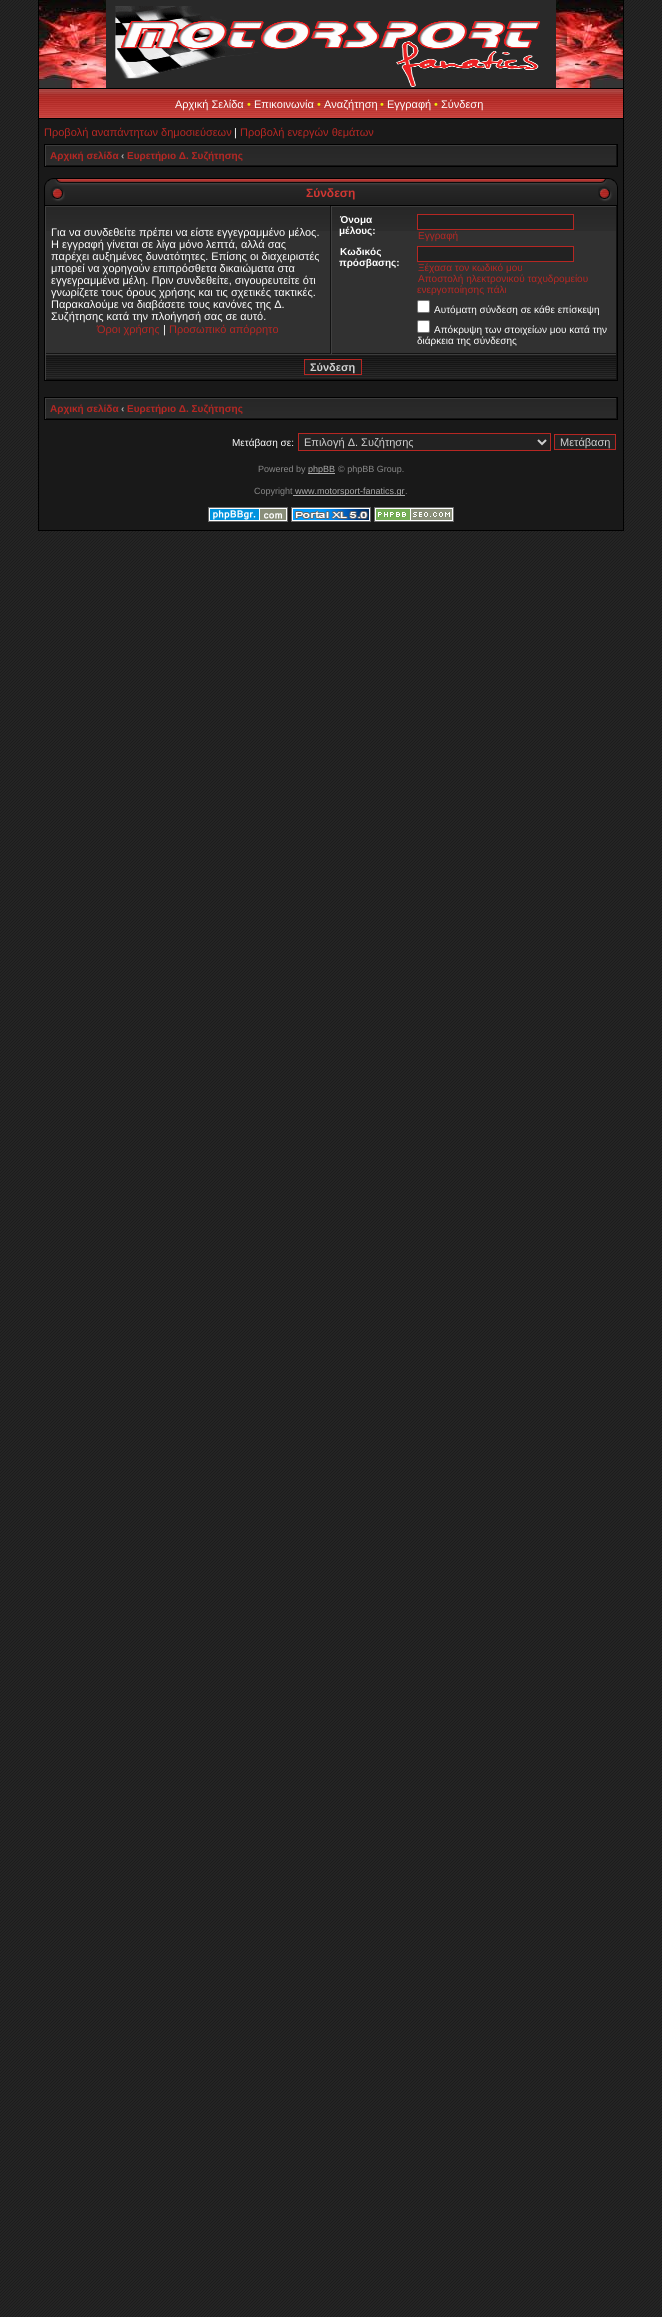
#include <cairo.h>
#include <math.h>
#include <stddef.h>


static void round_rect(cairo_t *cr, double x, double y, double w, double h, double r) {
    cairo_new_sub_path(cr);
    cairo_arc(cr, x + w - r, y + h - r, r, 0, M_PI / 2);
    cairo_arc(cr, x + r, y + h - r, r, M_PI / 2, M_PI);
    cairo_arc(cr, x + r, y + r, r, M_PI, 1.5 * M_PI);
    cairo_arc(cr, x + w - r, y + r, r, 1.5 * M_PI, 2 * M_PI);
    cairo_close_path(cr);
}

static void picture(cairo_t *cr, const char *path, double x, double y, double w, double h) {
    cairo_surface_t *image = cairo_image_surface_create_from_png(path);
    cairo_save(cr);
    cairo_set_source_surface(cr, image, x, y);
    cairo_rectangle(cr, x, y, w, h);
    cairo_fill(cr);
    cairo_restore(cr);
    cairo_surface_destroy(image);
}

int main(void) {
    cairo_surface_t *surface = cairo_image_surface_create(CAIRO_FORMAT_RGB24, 662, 2317);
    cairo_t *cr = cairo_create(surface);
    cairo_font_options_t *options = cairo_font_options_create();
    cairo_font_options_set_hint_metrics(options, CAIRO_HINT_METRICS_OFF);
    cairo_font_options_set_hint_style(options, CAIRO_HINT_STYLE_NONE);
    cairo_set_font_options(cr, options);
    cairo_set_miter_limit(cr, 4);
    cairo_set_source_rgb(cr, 1, 1, 1);
    cairo_paint(cr);
    picture(cr, "img1.png", 0, 0, 662, 2317);
    cairo_set_source_rgb(cr, 0, 0, 0);
    cairo_rectangle(cr, 623, 0, 1, 531);
    cairo_fill(cr);
    cairo_rectangle(cr, 38, 530, 586, 1);
    cairo_fill(cr);
    cairo_rectangle(cr, 38, 0, 1, 531);
    cairo_fill(cr);
    picture(cr, "img2.png", 39, 0, 67, 88);
    picture(cr, "img3.png", 556, 0, 67, 88);
    picture(cr, "img4.png", 106, 0, 450, 88);
    picture(cr, "img5.png", 39, 89, 584, 29);
    cairo_rectangle(cr, 39, 88, 584, 1);
    cairo_fill(cr);
    cairo_rectangle(cr, 39, 118, 584, 1);
    cairo_fill(cr);
    cairo_select_font_face(cr, "Liberation Sans", CAIRO_FONT_SLANT_NORMAL, CAIRO_FONT_WEIGHT_NORMAL);
    cairo_set_font_size(cr, 11);
    cairo_set_source_rgb(cr, 1, 1, 1);
    cairo_move_to(cr, 175, 108);
    cairo_show_text(cr, "Αρχική Σελίδα");
    cairo_set_source_rgb(cr, 0.941, 0.91, 0.039);
    cairo_move_to(cr, 247, 108);
    cairo_show_text(cr, "•");
    cairo_set_source_rgb(cr, 1, 1, 1);
    cairo_move_to(cr, 254, 108);
    cairo_show_text(cr, "Επικοινωνία");
    cairo_set_source_rgb(cr, 0.941, 0.91, 0.039);
    cairo_move_to(cr, 317, 108);
    cairo_show_text(cr, "•");
    cairo_set_source_rgb(cr, 1, 1, 1);
    cairo_move_to(cr, 324, 108);
    cairo_show_text(cr, "Αναζήτηση");
    cairo_set_source_rgb(cr, 0.941, 0.91, 0.039);
    cairo_move_to(cr, 380, 108);
    cairo_show_text(cr, "•");
    cairo_set_source_rgb(cr, 1, 1, 1);
    cairo_move_to(cr, 387, 108);
    cairo_show_text(cr, "Εγγραφή");
    cairo_set_source_rgb(cr, 0.941, 0.91, 0.039);
    cairo_move_to(cr, 434, 108);
    cairo_show_text(cr, "•");
    cairo_set_source_rgb(cr, 1, 1, 1);
    cairo_move_to(cr, 441, 108);
    cairo_show_text(cr, "Σύνδεση");
    cairo_set_source_rgb(cr, 0.098, 0.098, 0.098);
    cairo_rectangle(cr, 39, 119, 584, 411);
    cairo_fill(cr);
    cairo_set_source_rgb(cr, 0.714, 0.153, 0.137);
    cairo_move_to(cr, 44, 136);
    cairo_show_text(cr, "Προβολή αναπάντητων δημοσιεύσεων");
    cairo_set_source_rgb(cr, 1, 1, 1);
    cairo_move_to(cr, 234, 136);
    cairo_show_text(cr, "|");
    cairo_set_source_rgb(cr, 0.714, 0.153, 0.137);
    cairo_move_to(cr, 240, 136);
    cairo_show_text(cr, "Προβολή ενεργών θεμάτων");
    cairo_rectangle(cr, 44.5, 144.5, 573, 22);
    cairo_set_source_rgb(cr, 0, 0, 0);
    cairo_set_line_width(cr, 1);
    cairo_stroke(cr);
    picture(cr, "img6.png", 46, 146, 570, 19);
    cairo_set_source_rgb(cr, 0.235, 0.235, 0.235);
    cairo_rectangle(cr, 45, 145, 572, 1);
    cairo_fill(cr);
    cairo_set_source_rgb(cr, 0.071, 0.071, 0.071);
    cairo_rectangle(cr, 616, 145, 1, 21);
    cairo_fill(cr);
    cairo_set_source_rgb(cr, 0.075, 0.075, 0.075);
    cairo_rectangle(cr, 45, 165, 572, 1);
    cairo_fill(cr);
    cairo_set_source_rgb(cr, 0.251, 0.251, 0.251);
    cairo_rectangle(cr, 45, 145, 1, 21);
    cairo_fill(cr);
    cairo_select_font_face(cr, "Liberation Sans", CAIRO_FONT_SLANT_NORMAL, CAIRO_FONT_WEIGHT_BOLD);
    cairo_set_font_size(cr, 10);
    cairo_set_source_rgb(cr, 0.714, 0.153, 0.137);
    cairo_move_to(cr, 50, 159);
    cairo_show_text(cr, "Αρχική σελίδα");
    cairo_set_source_rgb(cr, 0.667, 0.667, 0.667);
    cairo_move_to(cr, 121, 159);
    cairo_show_text(cr, "‹");
    cairo_set_source_rgb(cr, 0.714, 0.153, 0.137);
    cairo_move_to(cr, 127, 159);
    cairo_show_text(cr, "Ευρετήριο Δ. Συζήτησης");
    picture(cr, "img7.png", 65, 178, 533, 27);
    picture(cr, "img8.png", 44, 178, 21, 27);
    picture(cr, "img9.png", 598, 178, 20, 27);
    cairo_set_font_size(cr, 12);
    cairo_set_source_rgb(cr, 0.816, 0.212, 0.196);
    cairo_move_to(cr, 306, 197);
    cairo_show_text(cr, "Σύνδεση");
    cairo_rectangle(cr, 44.5, 205.5, 573, 175);
    cairo_set_source_rgb(cr, 0, 0, 0);
    cairo_stroke(cr);
    cairo_set_source_rgb(cr, 0.192, 0.192, 0.192);
    cairo_rectangle(cr, 46, 231, 284, 122);
    cairo_fill(cr);
    picture(cr, "img10.png", 46, 207, 284, 24);
    cairo_set_source_rgb(cr, 0.235, 0.235, 0.235);
    cairo_rectangle(cr, 45, 206, 572, 1);
    cairo_fill(cr);
    cairo_set_source_rgb(cr, 0.071, 0.071, 0.071);
    cairo_rectangle(cr, 330, 206, 1, 148);
    cairo_fill(cr);
    cairo_set_source_rgb(cr, 0.075, 0.075, 0.075);
    cairo_rectangle(cr, 45, 353, 286, 1);
    cairo_fill(cr);
    cairo_set_source_rgb(cr, 0.251, 0.251, 0.251);
    cairo_rectangle(cr, 45, 206, 1, 148);
    cairo_fill(cr);
    cairo_select_font_face(cr, "Liberation Sans", CAIRO_FONT_SLANT_NORMAL, CAIRO_FONT_WEIGHT_NORMAL);
    cairo_set_font_size(cr, 11);
    cairo_set_source_rgb(cr, 1, 1, 1);
    cairo_move_to(cr, 51, 236);
    cairo_show_text(cr, "Για να συνδεθείτε πρέπει να είστε εγγεγραμμένο μέλος.");
    cairo_move_to(cr, 51, 248);
    cairo_show_text(cr, "Η εγγραφή γίνεται σε λίγα μόνο λεπτά, αλλά σας");
    cairo_move_to(cr, 51, 260);
    cairo_show_text(cr, "παρέχει αυξημένες δυνατότητες. Επίσης οι διαχειριστές");
    cairo_move_to(cr, 51, 272);
    cairo_show_text(cr, "μπορεί να χορηγούν επιπρόσθετα δικαιώματα στα");
    cairo_move_to(cr, 51, 284);
    cairo_show_text(cr, "εγγεγραμμένα μέλη. Πριν συνδεθείτε, σιγουρευτείτε ότι");
    cairo_move_to(cr, 51, 296);
    cairo_show_text(cr, "γνωρίζετε τους όρους χρήσης και τις σχετικές τακτικές.");
    cairo_move_to(cr, 51, 308);
    cairo_show_text(cr, "Παρακαλούμε να διαβάσετε τους κανόνες της Δ.");
    cairo_move_to(cr, 51, 320);
    cairo_show_text(cr, "Συζήτησης κατά την πλοήγησή σας σε αυτό.");
    cairo_set_source_rgb(cr, 0.714, 0.153, 0.137);
    cairo_move_to(cr, 97, 333);
    cairo_show_text(cr, "Όροι χρήσης");
    cairo_set_source_rgb(cr, 1, 1, 1);
    cairo_move_to(cr, 163, 333);
    cairo_show_text(cr, "|");
    cairo_set_source_rgb(cr, 0.714, 0.153, 0.137);
    cairo_move_to(cr, 169, 333);
    cairo_show_text(cr, "Προσωπικό απόρρητο");
    cairo_set_source_rgb(cr, 0.192, 0.192, 0.192);
    cairo_rectangle(cr, 332, 231, 284, 122);
    cairo_fill(cr);
    picture(cr, "img10.png", 332, 207, 284, 24);
    cairo_set_source_rgb(cr, 0.071, 0.071, 0.071);
    cairo_rectangle(cr, 616, 206, 1, 148);
    cairo_fill(cr);
    cairo_set_source_rgb(cr, 0.075, 0.075, 0.075);
    cairo_rectangle(cr, 331, 353, 286, 1);
    cairo_fill(cr);
    cairo_set_source_rgb(cr, 0.251, 0.251, 0.251);
    cairo_rectangle(cr, 331, 206, 1, 148);
    cairo_fill(cr);
    cairo_select_font_face(cr, "Liberation Sans", CAIRO_FONT_SLANT_NORMAL, CAIRO_FONT_WEIGHT_BOLD);
    cairo_set_font_size(cr, 10);
    cairo_set_source_rgb(cr, 1, 1, 1);
    cairo_move_to(cr, 340, 223);
    cairo_show_text(cr, "Όνομα");
    cairo_move_to(cr, 339, 234);
    cairo_show_text(cr, "μέλους:");
    cairo_set_source_rgb(cr, 0.133, 0.133, 0.133);
    cairo_rectangle(cr, 417.5, 214.5, 156, 15);
    cairo_fill_preserve(cr);
    cairo_set_source_rgb(cr, 0.714, 0.153, 0.137);
    cairo_stroke(cr);
    cairo_select_font_face(cr, "Liberation Sans", CAIRO_FONT_SLANT_NORMAL, CAIRO_FONT_WEIGHT_NORMAL);
    cairo_move_to(cr, 418, 239);
    cairo_show_text(cr, "Εγγραφή");
    cairo_select_font_face(cr, "Liberation Sans", CAIRO_FONT_SLANT_NORMAL, CAIRO_FONT_WEIGHT_BOLD);
    cairo_set_source_rgb(cr, 1, 1, 1);
    cairo_move_to(cr, 340, 255);
    cairo_show_text(cr, "Κωδικός");
    cairo_move_to(cr, 339, 266);
    cairo_show_text(cr, "πρόσβασης:");
    cairo_set_source_rgb(cr, 0.133, 0.133, 0.133);
    cairo_rectangle(cr, 417.5, 246.5, 156, 15);
    cairo_fill_preserve(cr);
    cairo_set_source_rgb(cr, 0.714, 0.153, 0.137);
    cairo_stroke(cr);
    cairo_select_font_face(cr, "Liberation Sans", CAIRO_FONT_SLANT_NORMAL, CAIRO_FONT_WEIGHT_NORMAL);
    cairo_move_to(cr, 418, 271);
    cairo_show_text(cr, "Ξέχασα τον κωδικό μου");
    cairo_move_to(cr, 418, 282);
    cairo_show_text(cr, "Αποστολή ηλεκτρονικού ταχυδρομείου");
    cairo_move_to(cr, 417, 293);
    cairo_show_text(cr, "ενεργοποίησης πάλι");
    cairo_set_source_rgb(cr, 1, 1, 1);
    round_rect(cr, 417.5, 300.5, 12, 12, 1.5);
    cairo_fill_preserve(cr);
    cairo_set_source_rgb(cr, 0.463, 0.463, 0.463);
    cairo_stroke(cr);
    cairo_set_source_rgb(cr, 1, 1, 1);
    cairo_move_to(cr, 434, 313);
    cairo_show_text(cr, "Αυτόματη σύνδεση σε κάθε επίσκεψη");
    round_rect(cr, 417.5, 320.5, 12, 12, 1.5);
    cairo_fill_preserve(cr);
    cairo_set_source_rgb(cr, 0.463, 0.463, 0.463);
    cairo_stroke(cr);
    cairo_set_source_rgb(cr, 1, 1, 1);
    cairo_move_to(cr, 434, 333);
    cairo_show_text(cr, "Απόκρυψη των στοιχείων μου κατά την");
    cairo_move_to(cr, 417, 344);
    cairo_show_text(cr, "διάρκεια της σύνδεσης");
    picture(cr, "img11.png", 46, 355, 570, 24);
    cairo_set_source_rgb(cr, 0.235, 0.235, 0.235);
    cairo_rectangle(cr, 45, 354, 572, 1);
    cairo_fill(cr);
    cairo_set_source_rgb(cr, 0.071, 0.071, 0.071);
    cairo_rectangle(cr, 616, 354, 1, 26);
    cairo_fill(cr);
    cairo_set_source_rgb(cr, 0.075, 0.075, 0.075);
    cairo_rectangle(cr, 45, 379, 572, 1);
    cairo_fill(cr);
    cairo_set_source_rgb(cr, 0.251, 0.251, 0.251);
    cairo_rectangle(cr, 45, 354, 1, 26);
    cairo_fill(cr);
    cairo_set_source_rgb(cr, 0.133, 0.133, 0.133);
    cairo_rectangle(cr, 304.5, 359.5, 57, 15);
    cairo_fill_preserve(cr);
    cairo_set_source_rgb(cr, 0.714, 0.153, 0.137);
    cairo_stroke(cr);
    cairo_select_font_face(cr, "Liberation Sans", CAIRO_FONT_SLANT_NORMAL, CAIRO_FONT_WEIGHT_BOLD);
    cairo_set_font_size(cr, 11);
    cairo_set_source_rgb(cr, 0.816, 0.816, 0.816);
    cairo_move_to(cr, 310, 371);
    cairo_show_text(cr, "Σύνδεση");
    cairo_rectangle(cr, 44.5, 397.5, 573, 22);
    cairo_set_source_rgb(cr, 0, 0, 0);
    cairo_stroke(cr);
    picture(cr, "img6.png", 46, 399, 570, 19);
    cairo_set_source_rgb(cr, 0.235, 0.235, 0.235);
    cairo_rectangle(cr, 45, 398, 572, 1);
    cairo_fill(cr);
    cairo_set_source_rgb(cr, 0.071, 0.071, 0.071);
    cairo_rectangle(cr, 616, 398, 1, 21);
    cairo_fill(cr);
    cairo_set_source_rgb(cr, 0.075, 0.075, 0.075);
    cairo_rectangle(cr, 45, 418, 572, 1);
    cairo_fill(cr);
    cairo_set_source_rgb(cr, 0.251, 0.251, 0.251);
    cairo_rectangle(cr, 45, 398, 1, 21);
    cairo_fill(cr);
    cairo_set_font_size(cr, 10);
    cairo_set_source_rgb(cr, 0.714, 0.153, 0.137);
    cairo_move_to(cr, 50, 412);
    cairo_show_text(cr, "Αρχική σελίδα");
    cairo_set_source_rgb(cr, 0.667, 0.667, 0.667);
    cairo_move_to(cr, 121, 412);
    cairo_show_text(cr, "‹");
    cairo_set_source_rgb(cr, 0.714, 0.153, 0.137);
    cairo_move_to(cr, 127, 412);
    cairo_show_text(cr, "Ευρετήριο Δ. Συζήτησης");
    cairo_select_font_face(cr, "Liberation Sans", CAIRO_FONT_SLANT_NORMAL, CAIRO_FONT_WEIGHT_NORMAL);
    cairo_set_source_rgb(cr, 1, 1, 1);
    cairo_move_to(cr, 232, 446);
    cairo_show_text(cr, "Μετάβαση σε:");
    cairo_set_source_rgb(cr, 0.133, 0.133, 0.133);
    cairo_rectangle(cr, 298.5, 433.5, 252, 17);
    cairo_fill_preserve(cr);
    cairo_set_source_rgb(cr, 0.714, 0.153, 0.137);
    cairo_stroke(cr);
    cairo_new_path(cr);
    cairo_move_to(cr, 538, 440);
    cairo_line_to(cr, 542, 444);
    cairo_line_to(cr, 546, 440);
    cairo_set_source_rgb(cr, 0.816, 0.816, 0.816);
    cairo_set_line_width(cr, 2);
    cairo_stroke(cr);
    cairo_set_font_size(cr, 11);
    cairo_move_to(cr, 304, 446);
    cairo_show_text(cr, "Επιλογή Δ. Συζήτησης");
    cairo_set_source_rgb(cr, 0.133, 0.133, 0.133);
    cairo_rectangle(cr, 554.5, 434.5, 61, 15);
    cairo_fill_preserve(cr);
    cairo_set_source_rgb(cr, 0.714, 0.153, 0.137);
    cairo_set_line_width(cr, 1);
    cairo_stroke(cr);
    cairo_set_source_rgb(cr, 0.816, 0.816, 0.816);
    cairo_move_to(cr, 560, 446);
    cairo_show_text(cr, "Μετάβαση");
    cairo_set_font_size(cr, 9);
    cairo_set_source_rgb(cr, 0.533, 0.533, 0.533);
    cairo_move_to(cr, 258, 472);
    cairo_show_text(cr, "Powered by");
    cairo_set_source_rgb(cr, 0.667, 0.667, 0.667);
    cairo_rectangle(cr, 308, 473, 27, 1);
    cairo_fill(cr);
    cairo_move_to(cr, 308, 472);
    cairo_show_text(cr, "phpBB");
    cairo_set_source_rgb(cr, 0.533, 0.533, 0.533);
    cairo_move_to(cr, 338, 472);
    cairo_show_text(cr, "© phpBB Group.");
    cairo_move_to(cr, 254, 494);
    cairo_show_text(cr, "Copyright");
    cairo_set_source_rgb(cr, 0.667, 0.667, 0.667);
    cairo_rectangle(cr, 293, 495, 112, 1);
    cairo_fill(cr);
    cairo_move_to(cr, 295, 494);
    cairo_show_text(cr, "www.motorsport-fanatics.gr");
    cairo_set_source_rgb(cr, 0.533, 0.533, 0.533);
    cairo_move_to(cr, 405, 494);
    cairo_show_text(cr, ".");
    picture(cr, "img12.png", 208, 507, 80, 15);
    picture(cr, "img13.png", 291, 507, 80, 15);
    picture(cr, "img14.png", 374, 507, 80, 15);
    cairo_surface_write_to_png(surface, "page.png");
    cairo_font_options_destroy(options);
    cairo_destroy(cr);
    cairo_surface_destroy(surface);
    return 0;
}
